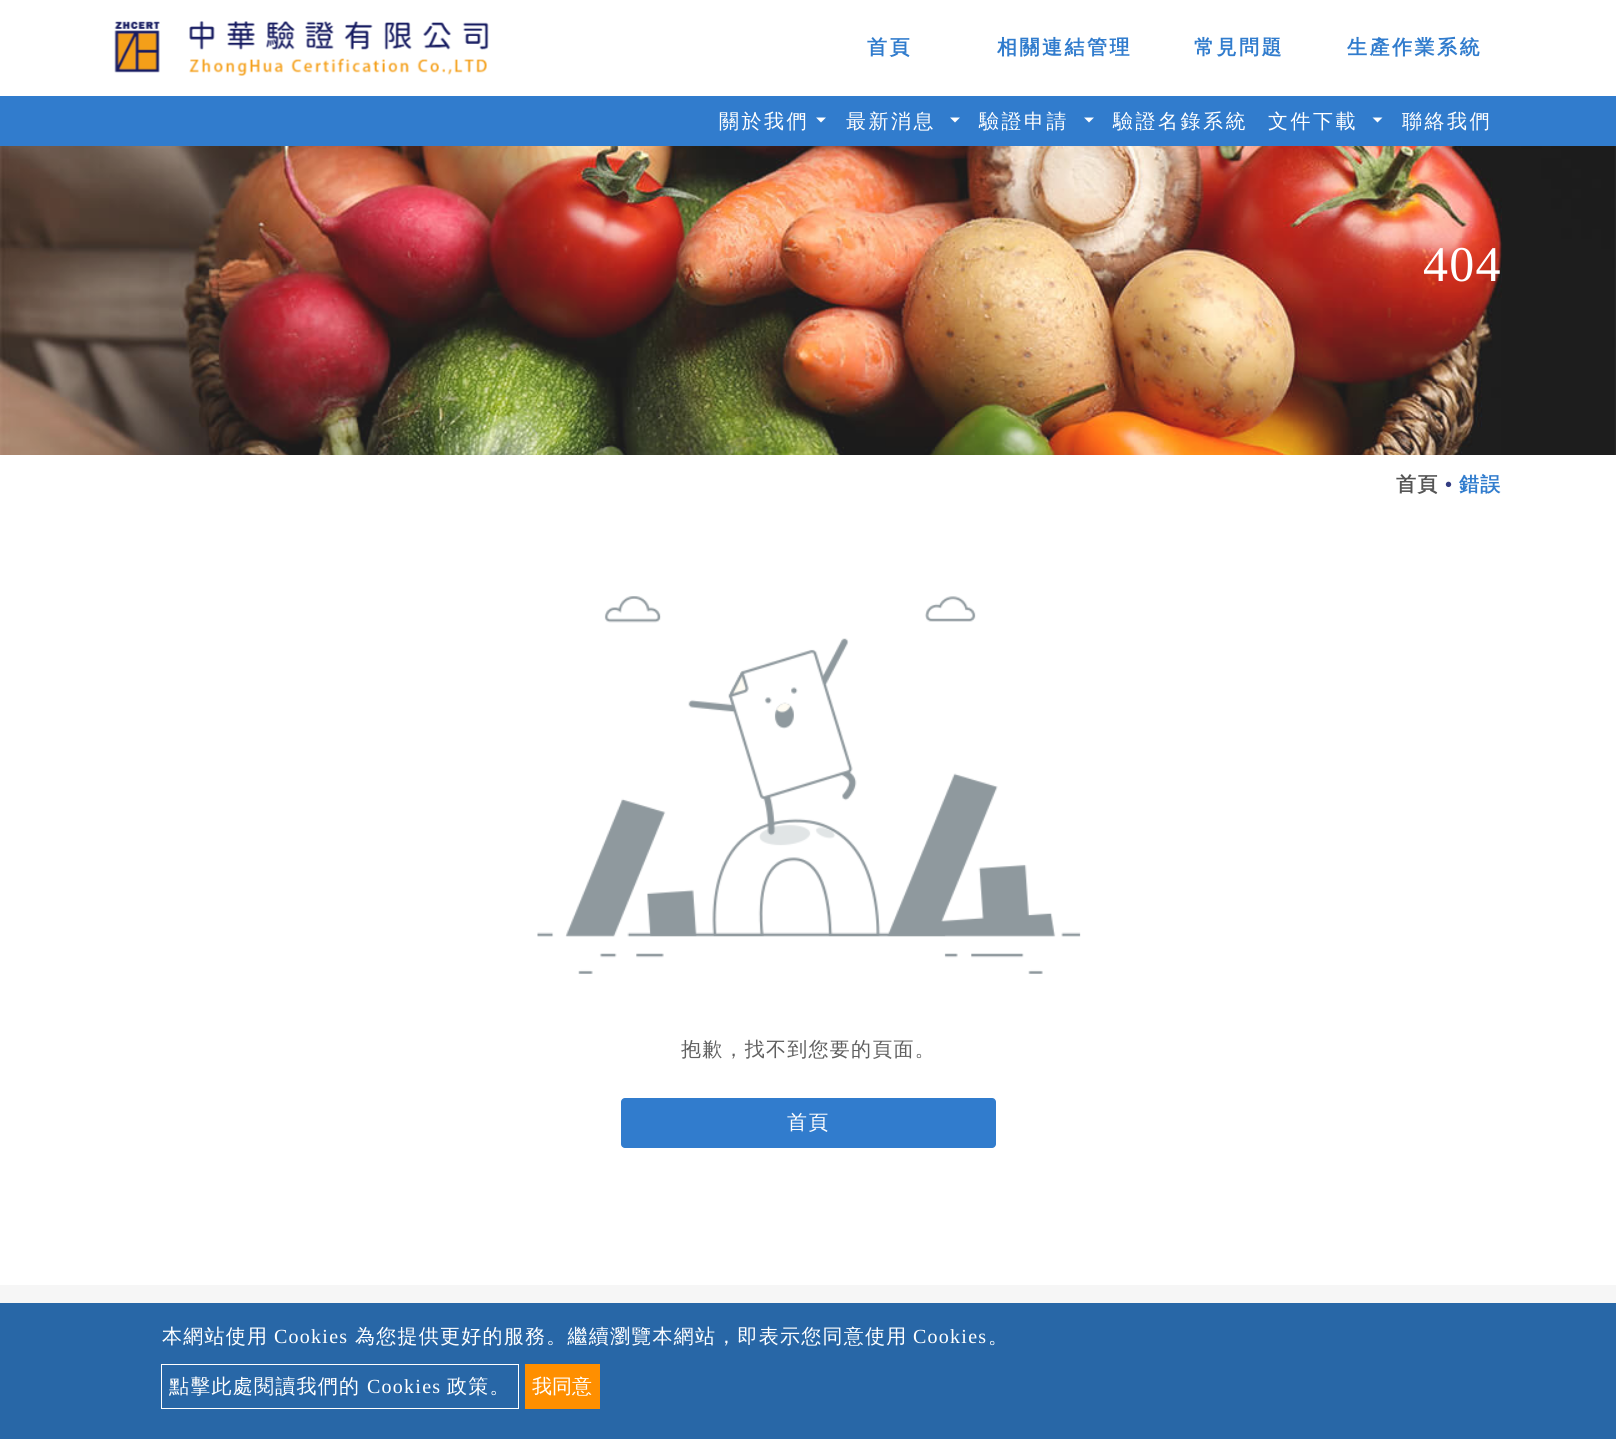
#include <cairo.h>
#include <math.h>
#include <stddef.h>


static void spaced_text(cairo_t *cr, double x, double y, const char *s, double letter, double word) {
    cairo_move_to(cr, x, y);
    while (*s) {
        char ch[5] = {0};
        int n = 0;
        do ch[n++] = *s++; while ((*s & 0xC0) == 0x80);
        cairo_show_text(cr, ch);
        cairo_rel_move_to(cr, letter + word * (*ch == ' '), 0);
    }
}

static void round_rect(cairo_t *cr, double x, double y, double w, double h, double r) {
    cairo_new_sub_path(cr);
    cairo_arc(cr, x + w - r, y + h - r, r, 0, M_PI / 2);
    cairo_arc(cr, x + r, y + h - r, r, M_PI / 2, M_PI);
    cairo_arc(cr, x + r, y + r, r, M_PI, 1.5 * M_PI);
    cairo_arc(cr, x + w - r, y + r, r, 1.5 * M_PI, 2 * M_PI);
    cairo_close_path(cr);
}

static void picture(cairo_t *cr, const char *path, double x, double y, double w, double h) {
    cairo_surface_t *image = cairo_image_surface_create_from_png(path);
    cairo_save(cr);
    cairo_set_source_surface(cr, image, x, y);
    cairo_rectangle(cr, x, y, w, h);
    cairo_fill(cr);
    cairo_restore(cr);
    cairo_surface_destroy(image);
}

int main(void) {
    cairo_surface_t *surface = cairo_image_surface_create(CAIRO_FORMAT_RGB24, 1616, 1439);
    cairo_t *cr = cairo_create(surface);
    cairo_font_options_t *options = cairo_font_options_create();
    cairo_font_options_set_hint_metrics(options, CAIRO_HINT_METRICS_OFF);
    cairo_font_options_set_hint_style(options, CAIRO_HINT_STYLE_NONE);
    cairo_set_font_options(cr, options);
    cairo_set_miter_limit(cr, 4);
    cairo_set_source_rgb(cr, 1, 1, 1);
    cairo_paint(cr);
    picture(cr, "img1.png", 114, 21, 375, 55);
    cairo_select_font_face(cr, "WenQuanYi Zen Hei", CAIRO_FONT_SLANT_NORMAL, CAIRO_FONT_WEIGHT_BOLD);
    cairo_set_font_size(cr, 20);
    cairo_set_source_rgb(cr, 0.192, 0.486, 0.804);
    spaced_text(cr, 867, 54, "首頁", 2.5, 0);
    spaced_text(cr, 997, 54, "相關連結管理", 2.5, 0);
    spaced_text(cr, 1194, 54, "常見問題", 2.5, 0);
    spaced_text(cr, 1347, 54, "生產作業系統", 2.5, 0);
    cairo_rectangle(cr, 0, 96, 1616, 50);
    cairo_fill(cr);
    cairo_select_font_face(cr, "WenQuanYi Zen Hei Medium", CAIRO_FONT_SLANT_NORMAL, CAIRO_FONT_WEIGHT_NORMAL);
    cairo_set_source_rgb(cr, 1, 1, 1);
    spaced_text(cr, 719, 128, "關於我們", 2.5, 0);
    cairo_new_path(cr);
    cairo_move_to(cr, 816, 117.5);
    cairo_line_to(cr, 826, 117.5);
    cairo_line_to(cr, 821, 122.5);
    cairo_close_path(cr);
    cairo_fill(cr);
    spaced_text(cr, 846, 128, "最新消息", 2.5, 0);
    cairo_new_path(cr);
    cairo_move_to(cr, 950, 117.5);
    cairo_line_to(cr, 960, 117.5);
    cairo_line_to(cr, 955, 122.5);
    cairo_close_path(cr);
    cairo_fill(cr);
    spaced_text(cr, 979, 128, "驗證申請", 2.5, 0);
    cairo_new_path(cr);
    cairo_move_to(cr, 1084, 117.5);
    cairo_line_to(cr, 1094, 117.5);
    cairo_line_to(cr, 1089, 122.5);
    cairo_close_path(cr);
    cairo_fill(cr);
    spaced_text(cr, 1113, 128, "驗證名錄系統", 2.5, 0);
    spaced_text(cr, 1268, 128, "文件下載", 2.5, 0);
    cairo_new_path(cr);
    cairo_move_to(cr, 1372.5, 117.5);
    cairo_line_to(cr, 1382.5, 117.5);
    cairo_line_to(cr, 1377.5, 122.5);
    cairo_close_path(cr);
    cairo_fill(cr);
    spaced_text(cr, 1402, 128, "聯絡我們", 2.5, 0);
    picture(cr, "img2.png", 0, 146, 1616, 309);
    cairo_select_font_face(cr, "Liberation Serif", CAIRO_FONT_SLANT_NORMAL, CAIRO_FONT_WEIGHT_NORMAL);
    cairo_set_font_size(cr, 50);
    spaced_text(cr, 1423, 281, "404", 1.25, 0);
    cairo_select_font_face(cr, "WenQuanYi Zen Hei", CAIRO_FONT_SLANT_NORMAL, CAIRO_FONT_WEIGHT_BOLD);
    cairo_set_font_size(cr, 20);
    cairo_set_source_rgb(cr, 0.333, 0.333, 0.333);
    spaced_text(cr, 1396, 491, "首頁", 1.25, 0);
    cairo_select_font_face(cr, "Liberation Serif", CAIRO_FONT_SLANT_NORMAL, CAIRO_FONT_WEIGHT_BOLD);
    cairo_set_source_rgb(cr, 0.2, 0.235, 0.51);
    spaced_text(cr, 1445, 491, "•", 1.25, 0);
    cairo_select_font_face(cr, "WenQuanYi Zen Hei", CAIRO_FONT_SLANT_NORMAL, CAIRO_FONT_WEIGHT_BOLD);
    cairo_set_source_rgb(cr, 0.192, 0.486, 0.804);
    spaced_text(cr, 1459, 491, "錯誤", 1.25, 0);
    picture(cr, "img3.png", 537, 596, 544, 378);
    cairo_select_font_face(cr, "WenQuanYi Zen Hei Medium", CAIRO_FONT_SLANT_NORMAL, CAIRO_FONT_WEIGHT_NORMAL);
    cairo_set_source_rgb(cr, 0.376, 0.376, 0.376);
    spaced_text(cr, 681, 1056, "抱歉，找不到您要的頁面。", 1.25, 0);
    cairo_set_source_rgb(cr, 0.192, 0.486, 0.804);
    round_rect(cr, 621, 1098, 375, 50, 4);
    cairo_fill(cr);
    cairo_set_source_rgb(cr, 1, 1, 1);
    spaced_text(cr, 787, 1129, "首頁", 1.25, 0);
    cairo_set_source_rgb(cr, 0.961, 0.961, 0.961);
    cairo_rectangle(cr, 0, 1285, 1616, 18);
    cairo_fill(cr);
    cairo_set_source_rgb(cr, 0.157, 0.404, 0.655);
    cairo_rectangle(cr, 0, 1303, 1616, 136);
    cairo_fill(cr);
    cairo_set_source_rgb(cr, 1, 1, 1);
    spaced_text(cr, 162, 1343, "本網站使用", 1.25, 0);
    cairo_select_font_face(cr, "Liberation Serif", CAIRO_FONT_SLANT_NORMAL, CAIRO_FONT_WEIGHT_NORMAL);
    spaced_text(cr, 274, 1343, "Cookies", 1.25, 0);
    cairo_select_font_face(cr, "WenQuanYi Zen Hei Medium", CAIRO_FONT_SLANT_NORMAL, CAIRO_FONT_WEIGHT_NORMAL);
    spaced_text(cr, 355, 1343, "為您提供更好的服務。繼續瀏覽本網站，即表示您同意使用", 1.25, 0);
    cairo_select_font_face(cr, "Liberation Serif", CAIRO_FONT_SLANT_NORMAL, CAIRO_FONT_WEIGHT_NORMAL);
    spaced_text(cr, 913, 1343, "Cookies", 1.25, 0);
    cairo_select_font_face(cr, "WenQuanYi Zen Hei Medium", CAIRO_FONT_SLANT_NORMAL, CAIRO_FONT_WEIGHT_NORMAL);
    spaced_text(cr, 988, 1343, "。", 1.25, 0);
    cairo_rectangle(cr, 161.5, 1364.5, 357, 44);
    cairo_set_line_width(cr, 1);
    cairo_stroke(cr);
    spaced_text(cr, 169, 1393, "點擊此處閱讀我們的", 1.25, 0);
    cairo_select_font_face(cr, "Liberation Serif", CAIRO_FONT_SLANT_NORMAL, CAIRO_FONT_WEIGHT_NORMAL);
    spaced_text(cr, 367, 1393, "Cookies", 1.25, 0);
    cairo_select_font_face(cr, "WenQuanYi Zen Hei Medium", CAIRO_FONT_SLANT_NORMAL, CAIRO_FONT_WEIGHT_NORMAL);
    spaced_text(cr, 447, 1393, "政策。", 1.25, 0);
    cairo_set_source_rgb(cr, 1, 0.561, 0);
    cairo_rectangle(cr, 525, 1364, 75, 45);
    cairo_fill(cr);
    cairo_set_source_rgb(cr, 1, 1, 1);
    cairo_move_to(cr, 532, 1393);
    cairo_show_text(cr, "我同意");
    cairo_surface_write_to_png(surface, "page.png");
    cairo_font_options_destroy(options);
    cairo_destroy(cr);
    cairo_surface_destroy(surface);
    return 0;
}
